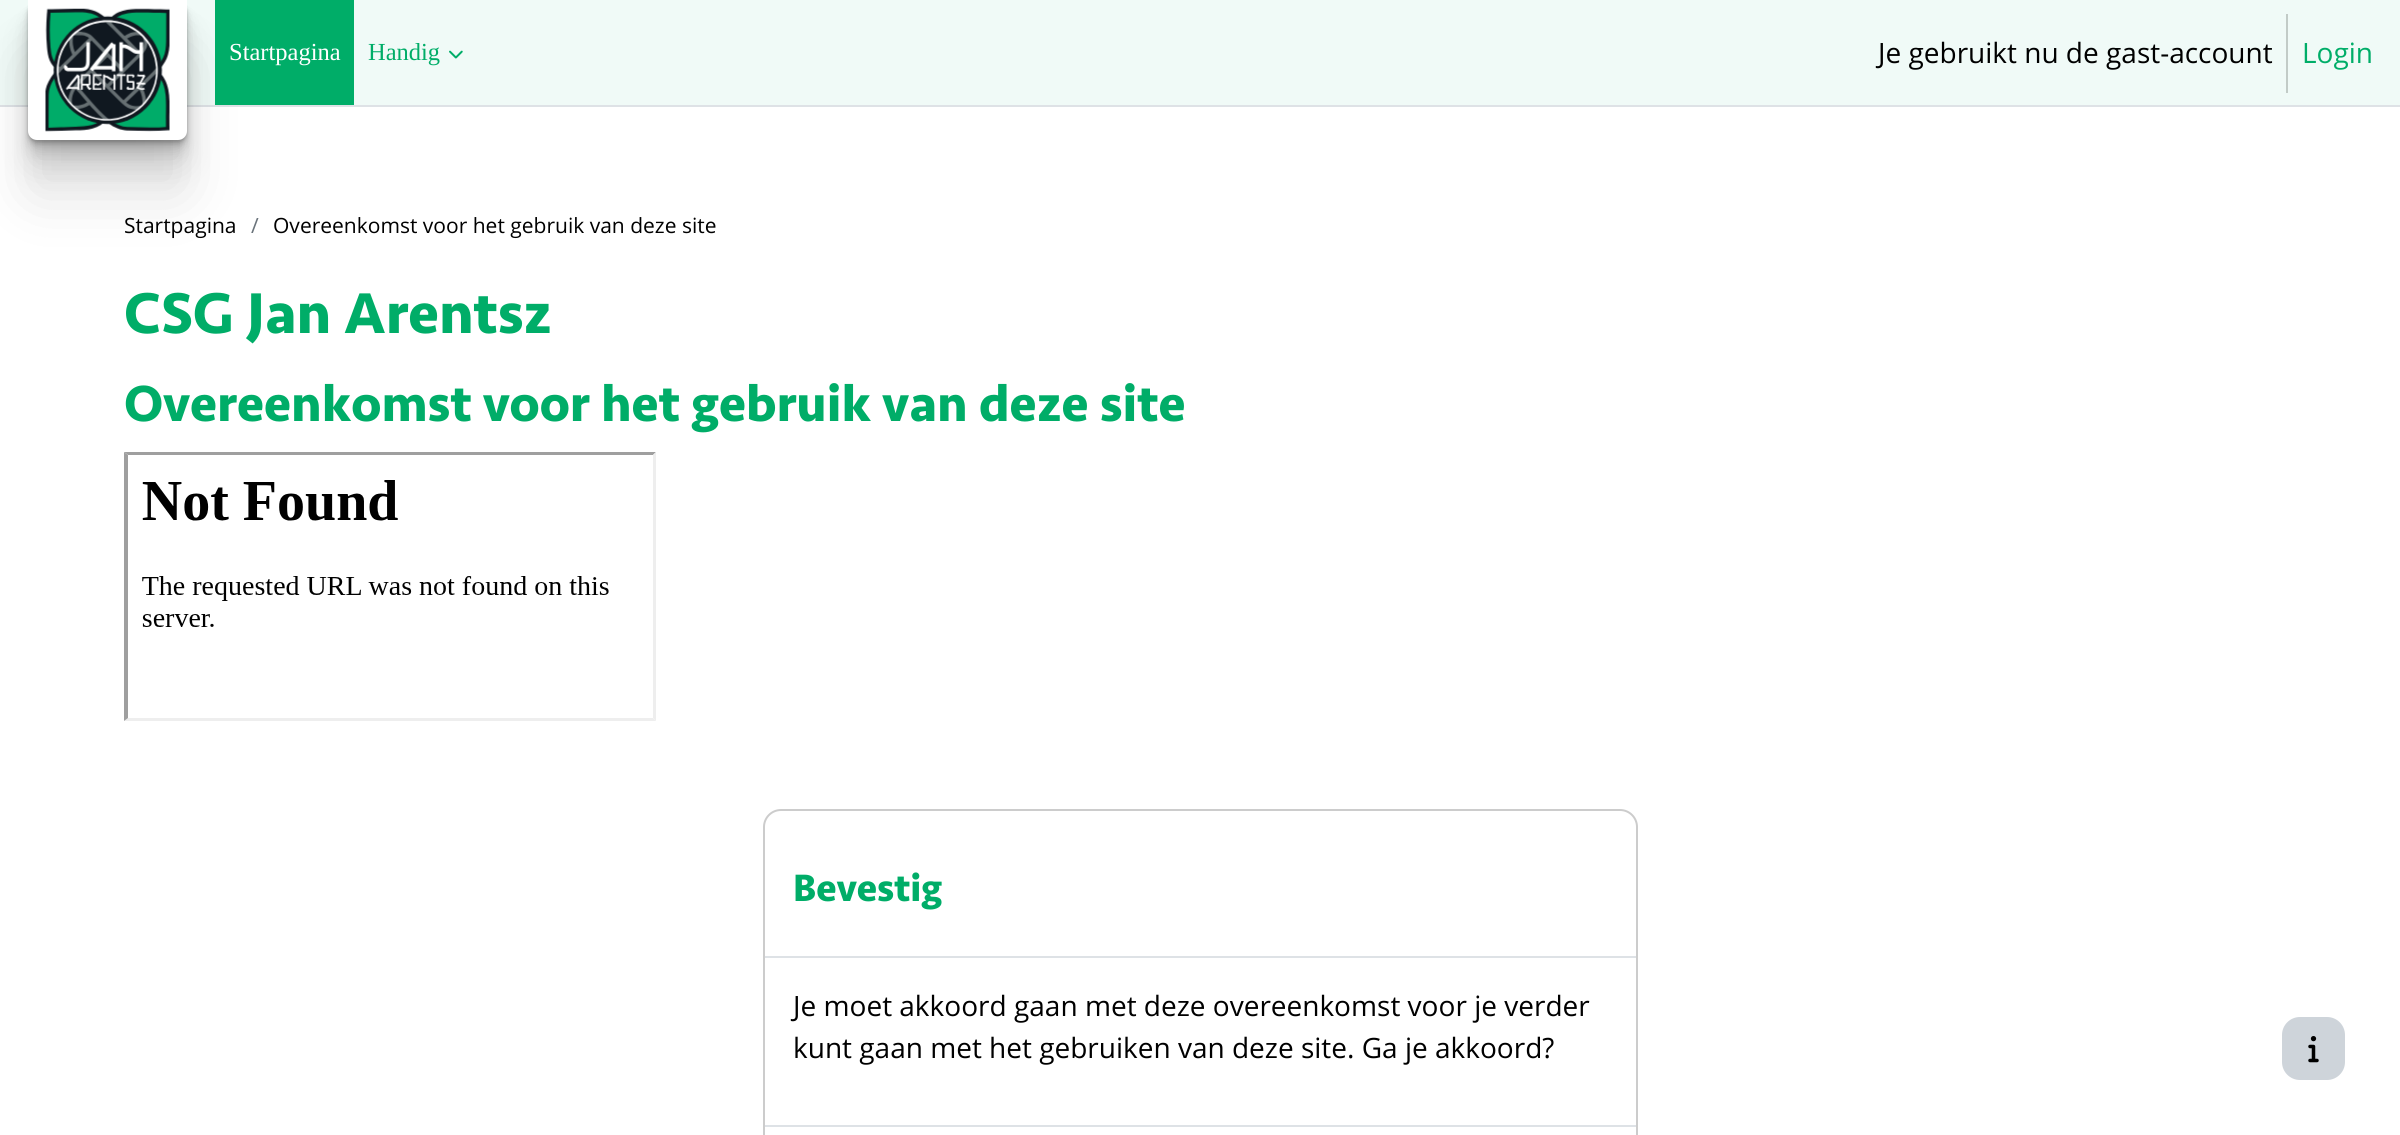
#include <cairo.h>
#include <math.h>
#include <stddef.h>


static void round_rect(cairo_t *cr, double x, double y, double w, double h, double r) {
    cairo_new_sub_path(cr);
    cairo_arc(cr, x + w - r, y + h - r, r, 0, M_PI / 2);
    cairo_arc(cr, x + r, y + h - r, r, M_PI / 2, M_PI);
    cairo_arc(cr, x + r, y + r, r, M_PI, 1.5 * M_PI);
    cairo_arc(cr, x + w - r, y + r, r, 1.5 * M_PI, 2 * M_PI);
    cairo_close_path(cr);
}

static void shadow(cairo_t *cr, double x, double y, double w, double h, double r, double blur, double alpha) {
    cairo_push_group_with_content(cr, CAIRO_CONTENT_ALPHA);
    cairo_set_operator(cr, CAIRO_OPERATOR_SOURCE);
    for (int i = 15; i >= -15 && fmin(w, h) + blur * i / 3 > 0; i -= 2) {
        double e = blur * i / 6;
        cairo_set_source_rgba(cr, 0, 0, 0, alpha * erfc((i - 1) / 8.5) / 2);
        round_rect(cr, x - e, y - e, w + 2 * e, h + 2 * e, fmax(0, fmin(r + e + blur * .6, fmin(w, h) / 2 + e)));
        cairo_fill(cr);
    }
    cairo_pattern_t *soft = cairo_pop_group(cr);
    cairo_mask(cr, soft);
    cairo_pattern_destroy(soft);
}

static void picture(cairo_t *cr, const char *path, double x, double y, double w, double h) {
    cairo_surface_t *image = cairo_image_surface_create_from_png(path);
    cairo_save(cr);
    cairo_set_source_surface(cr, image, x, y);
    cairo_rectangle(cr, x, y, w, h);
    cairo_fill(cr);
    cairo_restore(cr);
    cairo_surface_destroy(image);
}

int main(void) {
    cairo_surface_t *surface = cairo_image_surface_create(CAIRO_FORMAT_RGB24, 2400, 1135);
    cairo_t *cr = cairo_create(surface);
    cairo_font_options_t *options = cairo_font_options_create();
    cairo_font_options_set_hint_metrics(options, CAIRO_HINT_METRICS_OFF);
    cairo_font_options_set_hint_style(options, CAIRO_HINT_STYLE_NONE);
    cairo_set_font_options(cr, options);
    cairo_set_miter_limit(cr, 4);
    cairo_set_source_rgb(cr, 1, 1, 1);
    cairo_paint(cr);
    cairo_set_source_rgb(cr, 0.941, 0.98, 0.965);
    cairo_rectangle(cr, 0, 0, 2400, 105);
    cairo_fill(cr);
    cairo_set_source_rgb(cr, 0.871, 0.886, 0.902);
    cairo_rectangle(cr, 0, 105, 2400, 2);
    cairo_fill(cr);
    cairo_set_source_rgb(cr, 0, 0, 0);
    shadow(cr, 28, 56, 159, 140, 9, 28, 0.11);
    shadow(cr, 28, 28, 159, 140, 9, 14, 0.11);
    shadow(cr, 28, 14, 159, 140, 9, 7, 0.11);
    shadow(cr, 28, 7, 159, 140, 9, 3.5, 0.11);
    shadow(cr, 28, 4, 159, 140, 9, 2, 0.11);
    shadow(cr, 28, 2, 159, 140, 9, 1, 0.11);
    cairo_set_source_rgb(cr, 1, 1, 1);
    cairo_new_path(cr);
    cairo_move_to(cr, 28, 0);
    cairo_line_to(cr, 187, 0);
    cairo_line_to(cr, 187, 131);
    cairo_curve_to(cr, 187, 136, 183, 140, 178, 140);
    cairo_line_to(cr, 37, 140);
    cairo_curve_to(cr, 32, 140, 28, 136, 28, 131);
    cairo_close_path(cr);
    cairo_fill(cr);
    picture(cr, "img1.png", 45, 8, 125, 124);
    cairo_set_source_rgb(cr, 0, 0.678, 0.408);
    cairo_rectangle(cr, 215, 0, 139, 105);
    cairo_fill(cr);
    cairo_select_font_face(cr, "Liberation Serif", CAIRO_FONT_SLANT_NORMAL, CAIRO_FONT_WEIGHT_NORMAL);
    cairo_set_font_size(cr, 24.5);
    cairo_set_source_rgb(cr, 1, 1, 1);
    cairo_move_to(cr, 229, 60);
    cairo_show_text(cr, "Startpagina");
    cairo_set_source_rgb(cr, 0, 0.678, 0.408);
    cairo_move_to(cr, 368, 60);
    cairo_show_text(cr, "Handig");
    picture(cr, "img2.png", 449, 50, 14, 9);
    cairo_select_font_face(cr, "Open Sans", CAIRO_FONT_SLANT_NORMAL, CAIRO_FONT_WEIGHT_NORMAL);
    cairo_set_font_size(cr, 28);
    cairo_set_source_rgb(cr, 0, 0, 0);
    cairo_move_to(cr, 1878, 63);
    cairo_show_text(cr, "Je gebruikt nu de gast-account");
    cairo_set_source_rgb(cr, 0.761, 0.796, 0.78);
    cairo_rectangle(cr, 2286, 14, 2, 79);
    cairo_fill(cr);
    cairo_set_source_rgb(cr, 0, 0.678, 0.408);
    cairo_move_to(cr, 2302, 63);
    cairo_show_text(cr, "Login");
    cairo_set_font_size(cr, 21);
    cairo_set_source_rgb(cr, 0, 0, 0);
    cairo_move_to(cr, 124, 233);
    cairo_show_text(cr, "Startpagina");
    cairo_set_source_rgb(cr, 0.416, 0.451, 0.482);
    cairo_move_to(cr, 251, 233);
    cairo_show_text(cr, "/");
    cairo_set_source_rgb(cr, 0, 0, 0);
    cairo_move_to(cr, 273, 233);
    cairo_show_text(cr, "Overeenkomst voor het gebruik van deze site");
    cairo_select_font_face(cr, "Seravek", CAIRO_FONT_SLANT_NORMAL, CAIRO_FONT_WEIGHT_BOLD);
    cairo_set_font_size(cr, 59.5);
    cairo_set_source_rgb(cr, 0, 0.678, 0.408);
    cairo_move_to(cr, 124, 333);
    cairo_show_text(cr, "CSG Jan Arentsz");
    cairo_set_font_size(cr, 52.5);
    cairo_move_to(cr, 124, 421);
    cairo_show_text(cr, "Overeenkomst voor het gebruik van deze site");
    cairo_set_source_rgb(cr, 0.624, 0.624, 0.624);
    cairo_new_path(cr);
    cairo_move_to(cr, 124, 452);
    cairo_line_to(cr, 656, 452);
    cairo_line_to(cr, 653, 455);
    cairo_line_to(cr, 128, 455);
    cairo_close_path(cr);
    cairo_fill(cr);
    cairo_set_source_rgb(cr, 0.933, 0.933, 0.933);
    cairo_new_path(cr);
    cairo_move_to(cr, 656, 452);
    cairo_line_to(cr, 656, 721);
    cairo_line_to(cr, 653, 718);
    cairo_line_to(cr, 653, 455);
    cairo_close_path(cr);
    cairo_fill(cr);
    cairo_new_path(cr);
    cairo_move_to(cr, 656, 721);
    cairo_line_to(cr, 124, 721);
    cairo_line_to(cr, 128, 718);
    cairo_line_to(cr, 653, 718);
    cairo_close_path(cr);
    cairo_fill(cr);
    cairo_set_source_rgb(cr, 0.624, 0.624, 0.624);
    cairo_new_path(cr);
    cairo_move_to(cr, 124, 721);
    cairo_line_to(cr, 124, 452);
    cairo_line_to(cr, 128, 455);
    cairo_line_to(cr, 128, 718);
    cairo_close_path(cr);
    cairo_fill(cr);
    picture(cr, "img3.png", 142, 480, 467, 147);
    round_rect(cr, 764, 810, 873, 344, 17);
    cairo_set_source_rgb(cr, 0.8, 0.8, 0.8);
    cairo_stroke(cr);
    cairo_set_source_rgb(cr, 0.871, 0.886, 0.902);
    cairo_rectangle(cr, 765, 956, 871, 2);
    cairo_fill(cr);
    cairo_set_font_size(cr, 39.5);
    cairo_set_source_rgb(cr, 0, 0.678, 0.408);
    cairo_move_to(cr, 793, 901);
    cairo_show_text(cr, "Bevestig");
    cairo_select_font_face(cr, "Open Sans", CAIRO_FONT_SLANT_NORMAL, CAIRO_FONT_WEIGHT_NORMAL);
    cairo_set_font_size(cr, 28);
    cairo_set_source_rgb(cr, 0, 0, 0);
    cairo_move_to(cr, 793, 1016);
    cairo_show_text(cr, "Je moet akkoord gaan met deze overeenkomst voor je verder");
    cairo_move_to(cr, 793, 1058);
    cairo_show_text(cr, "kunt gaan met het gebruiken van deze site. Ga je akkoord?");
    cairo_set_source_rgb(cr, 0.871, 0.886, 0.902);
    cairo_rectangle(cr, 765, 1125, 871, 2);
    cairo_fill(cr);
    cairo_set_source_rgb(cr, 0.808, 0.831, 0.855);
    round_rect(cr, 2282, 1017, 63, 63, 18);
    cairo_fill(cr);
    picture(cr, "img4.png", 2308, 1036, 11, 27);
    cairo_surface_write_to_png(surface, "page.png");
    cairo_font_options_destroy(options);
    cairo_destroy(cr);
    cairo_surface_destroy(surface);
    return 0;
}
